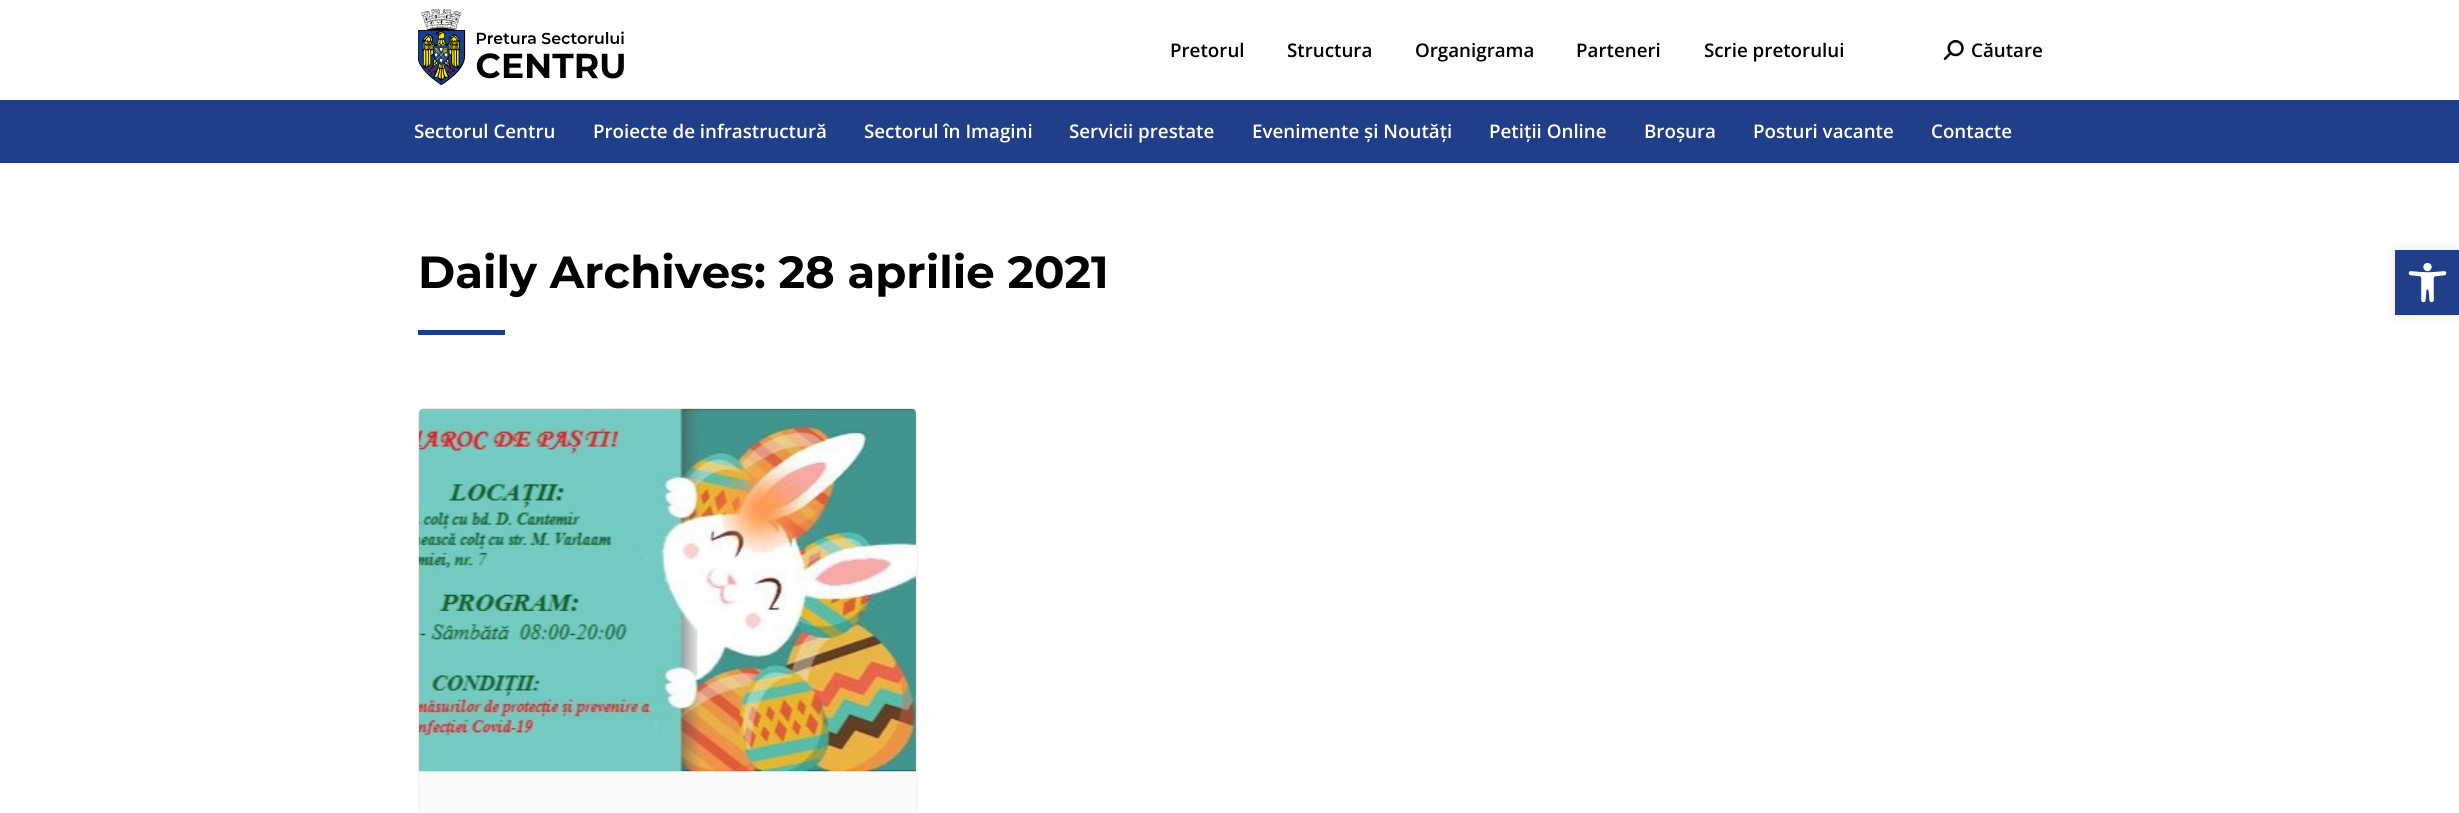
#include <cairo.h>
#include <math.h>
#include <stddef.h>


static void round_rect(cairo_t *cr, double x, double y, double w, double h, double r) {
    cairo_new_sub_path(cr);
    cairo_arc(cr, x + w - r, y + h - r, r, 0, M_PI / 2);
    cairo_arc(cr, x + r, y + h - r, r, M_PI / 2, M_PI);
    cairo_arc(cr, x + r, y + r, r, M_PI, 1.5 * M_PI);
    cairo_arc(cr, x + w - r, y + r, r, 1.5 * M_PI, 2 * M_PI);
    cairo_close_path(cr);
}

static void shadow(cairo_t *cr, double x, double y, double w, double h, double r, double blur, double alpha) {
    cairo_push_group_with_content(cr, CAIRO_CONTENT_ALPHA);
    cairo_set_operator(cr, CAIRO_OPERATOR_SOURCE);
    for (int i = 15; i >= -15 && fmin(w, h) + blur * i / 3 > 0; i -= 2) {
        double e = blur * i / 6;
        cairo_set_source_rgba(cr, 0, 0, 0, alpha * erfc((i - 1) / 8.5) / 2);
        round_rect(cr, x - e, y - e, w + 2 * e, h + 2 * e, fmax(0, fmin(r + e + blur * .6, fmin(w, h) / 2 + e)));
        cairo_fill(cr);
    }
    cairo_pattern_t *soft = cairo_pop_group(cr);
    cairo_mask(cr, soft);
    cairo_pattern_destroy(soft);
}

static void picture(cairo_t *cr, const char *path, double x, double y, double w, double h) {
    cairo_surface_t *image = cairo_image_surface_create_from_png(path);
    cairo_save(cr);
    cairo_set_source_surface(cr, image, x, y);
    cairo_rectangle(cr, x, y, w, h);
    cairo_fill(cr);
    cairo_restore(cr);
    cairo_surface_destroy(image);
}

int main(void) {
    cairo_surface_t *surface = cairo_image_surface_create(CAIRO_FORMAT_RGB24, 2459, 813);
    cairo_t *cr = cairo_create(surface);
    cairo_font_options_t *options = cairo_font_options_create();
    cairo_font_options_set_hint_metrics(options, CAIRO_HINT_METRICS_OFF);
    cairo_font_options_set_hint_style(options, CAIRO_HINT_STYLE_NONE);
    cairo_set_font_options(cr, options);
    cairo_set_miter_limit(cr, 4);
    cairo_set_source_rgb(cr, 1, 1, 1);
    cairo_paint(cr);
    cairo_set_source_rgb(cr, 0.129, 0.247, 0.537);
    cairo_rectangle(cr, 0, 100, 2459, 63);
    cairo_fill(cr);
    picture(cr, "img1.png", 418, 9, 206, 76);
    cairo_select_font_face(cr, "Open Sans SemiBold", CAIRO_FONT_SLANT_NORMAL, CAIRO_FONT_WEIGHT_NORMAL);
    cairo_set_font_size(cr, 18.75);
    cairo_set_source_rgb(cr, 0, 0, 0);
    cairo_move_to(cr, 1170, 57);
    cairo_show_text(cr, "Pretorul");
    cairo_move_to(cr, 1287, 57);
    cairo_show_text(cr, "Structura");
    cairo_move_to(cr, 1415, 57);
    cairo_show_text(cr, "Organigrama");
    cairo_move_to(cr, 1576, 57);
    cairo_show_text(cr, "Parteneri");
    cairo_move_to(cr, 1704, 57);
    cairo_show_text(cr, "Scrie pretorului");
    picture(cr, "img2.png", 1943, 40, 21, 20);
    cairo_move_to(cr, 1971, 57);
    cairo_show_text(cr, "Căutare");
    cairo_set_source_rgb(cr, 1, 1, 1);
    cairo_move_to(cr, 414, 138);
    cairo_show_text(cr, "Sectorul Centru");
    cairo_move_to(cr, 593, 138);
    cairo_show_text(cr, "Proiecte de infrastructură");
    cairo_move_to(cr, 864, 138);
    cairo_show_text(cr, "Sectorul în Imagini");
    cairo_move_to(cr, 1069, 138);
    cairo_show_text(cr, "Servicii prestate");
    cairo_move_to(cr, 1252, 138);
    cairo_show_text(cr, "Evenimente și Noutăți");
    cairo_move_to(cr, 1489, 138);
    cairo_show_text(cr, "Petiții Online");
    cairo_move_to(cr, 1644, 138);
    cairo_show_text(cr, "Broșura");
    cairo_move_to(cr, 1753, 138);
    cairo_show_text(cr, "Posturi vacante");
    cairo_move_to(cr, 1931, 138);
    cairo_show_text(cr, "Contacte");
    cairo_select_font_face(cr, "Montserrat", CAIRO_FONT_SLANT_NORMAL, CAIRO_FONT_WEIGHT_BOLD);
    cairo_set_font_size(cr, 45);
    cairo_set_source_rgb(cr, 0, 0, 0);
    cairo_move_to(cr, 418, 288);
    cairo_show_text(cr, "Daily Archives: 28 aprilie 2021");
    cairo_set_source_rgb(cr, 0.098, 0.243, 0.557);
    cairo_rectangle(cr, 418, 330, 87, 5);
    cairo_fill(cr);
    cairo_set_source_rgb(cr, 0.98, 0.98, 0.98);
    round_rect(cr, 418.5, 408.5, 499, 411, 5.5);
    cairo_fill_preserve(cr);
    cairo_set_source_rgb(cr, 0.937, 0.937, 0.937);
    cairo_set_line_width(cr, 1);
    cairo_stroke(cr);
    picture(cr, "img3.png", 418, 408, 499, 364);
    cairo_set_source_rgb(cr, 0, 0, 0);
    shadow(cr, 2395, 250, 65, 65, 0, 6, 0.1);
    cairo_set_source_rgb(cr, 0.129, 0.247, 0.537);
    cairo_rectangle(cr, 2395, 250, 64, 65);
    cairo_fill(cr);
    picture(cr, "img4.png", 2408, 263, 39, 40);
    cairo_surface_write_to_png(surface, "page.png");
    cairo_font_options_destroy(options);
    cairo_destroy(cr);
    cairo_surface_destroy(surface);
    return 0;
}
